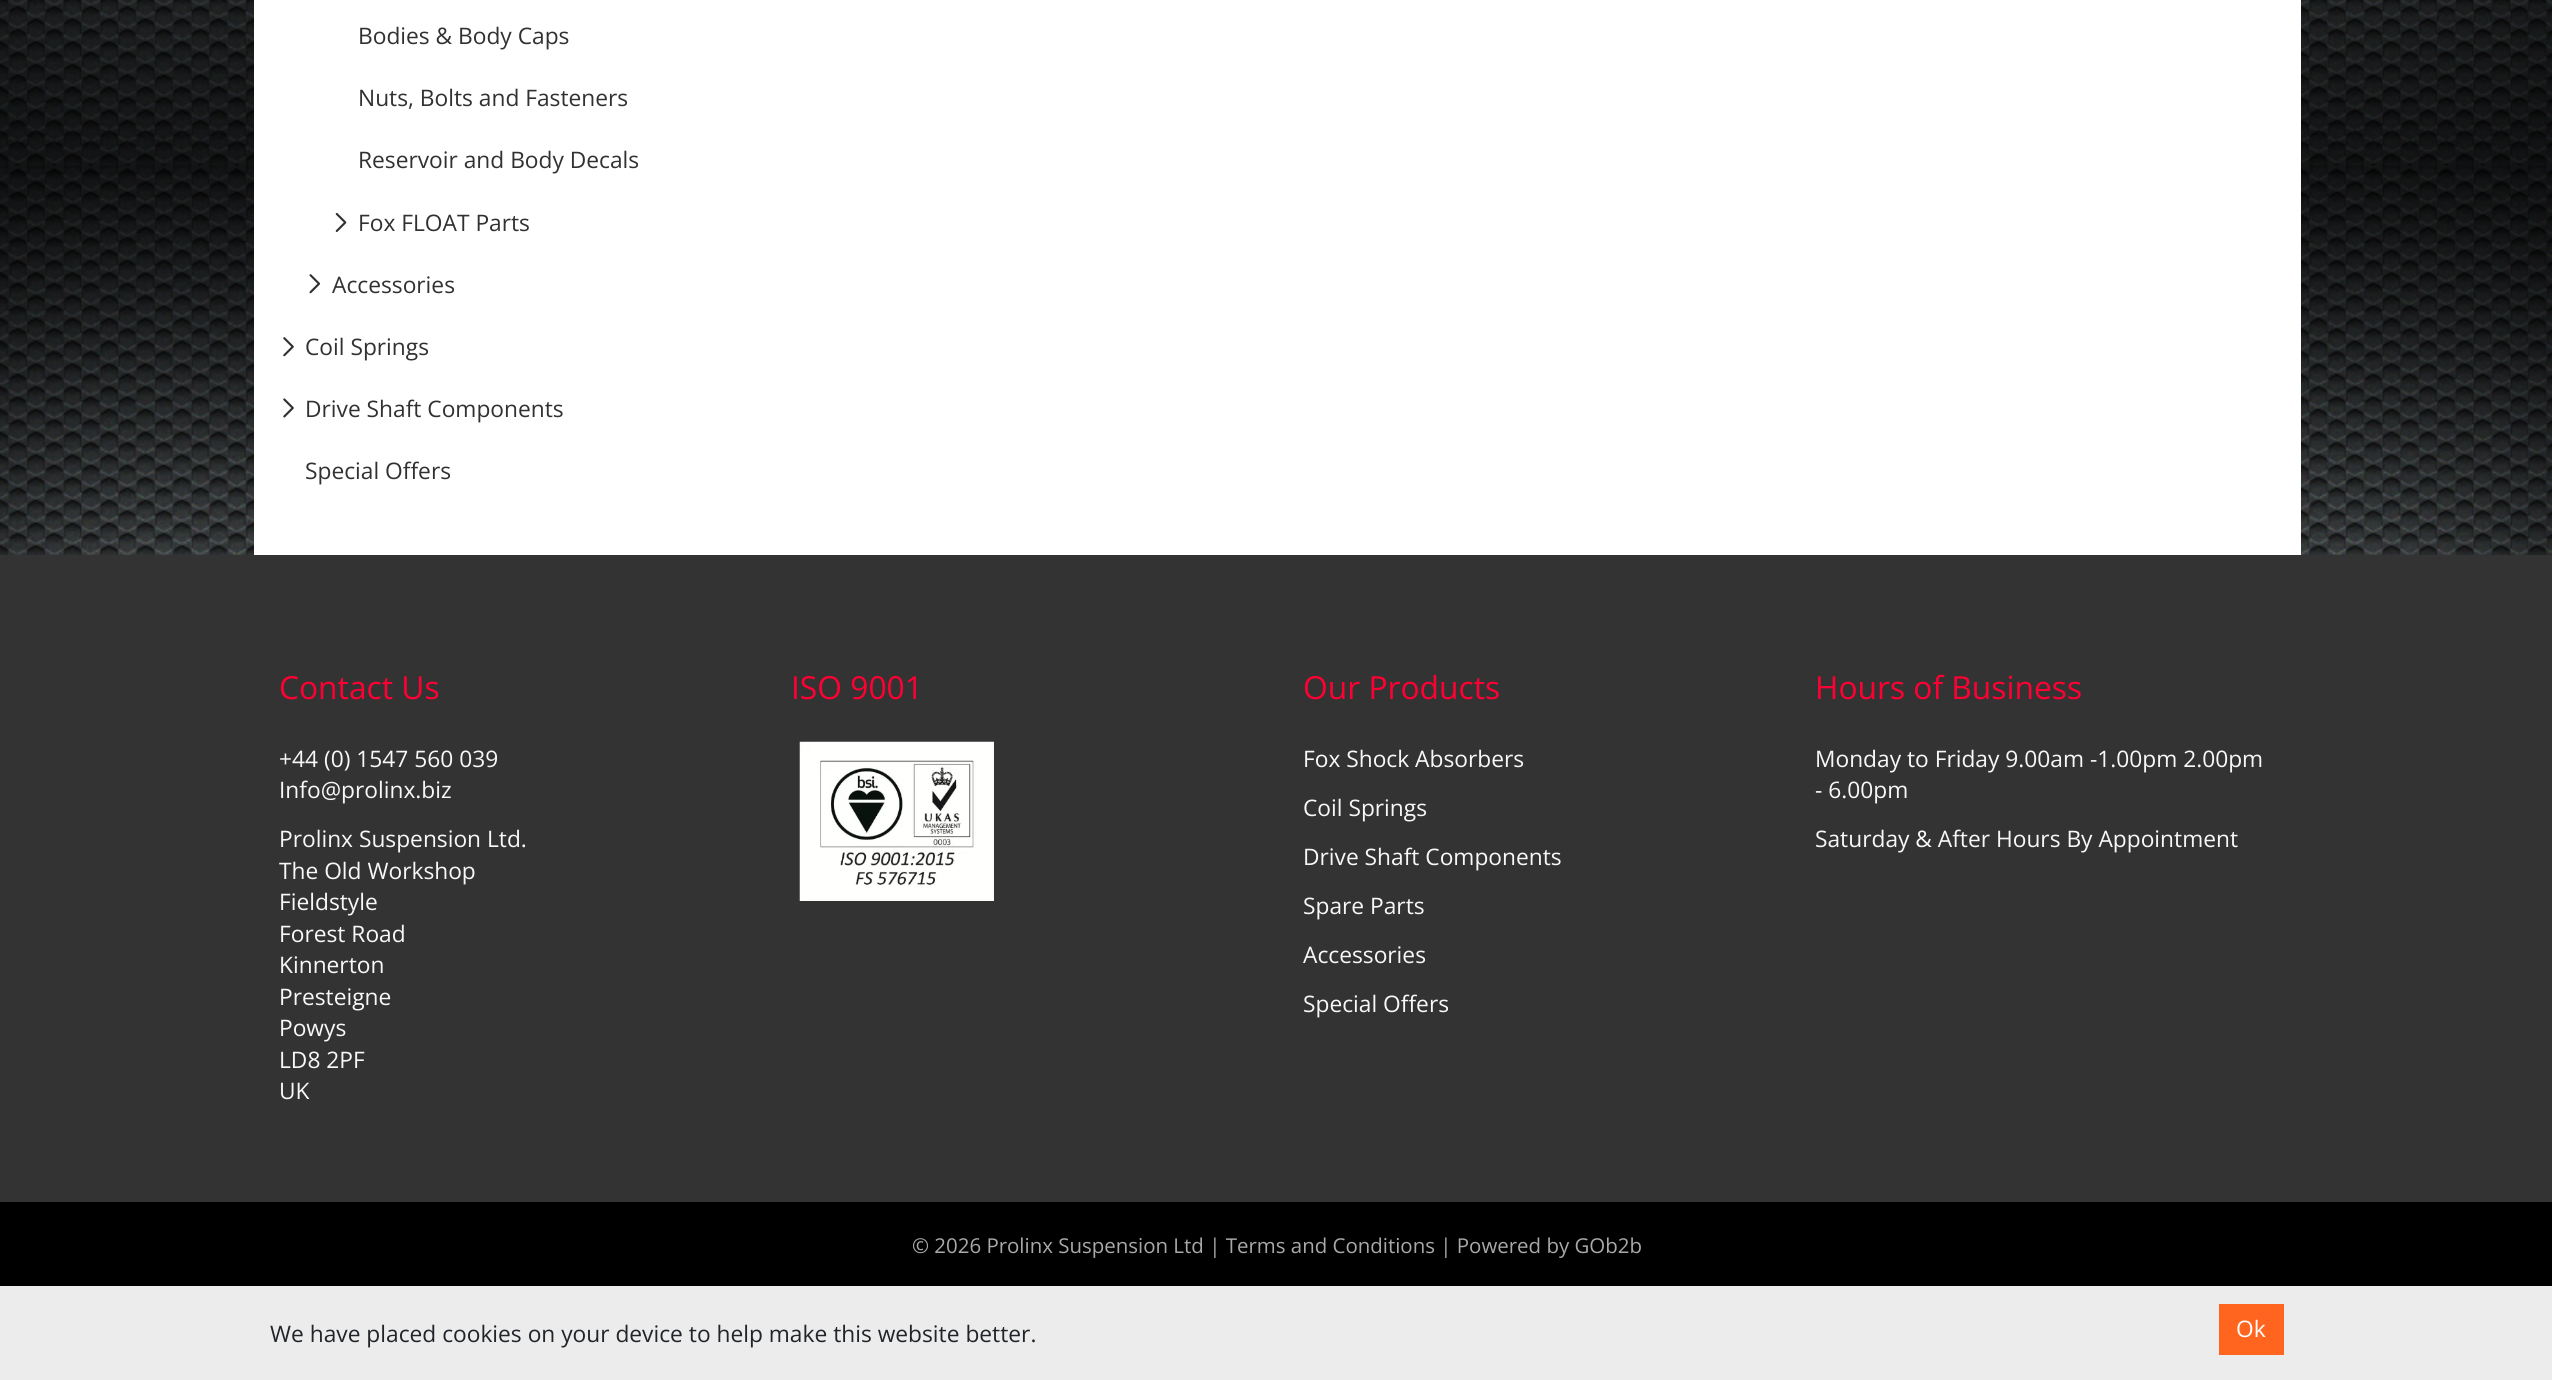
#include <cairo.h>
#include <math.h>
#include <stddef.h>


static void picture(cairo_t *cr, const char *path, double x, double y, double w, double h) {
    cairo_surface_t *image = cairo_image_surface_create_from_png(path);
    cairo_save(cr);
    cairo_set_source_surface(cr, image, x, y);
    cairo_rectangle(cr, x, y, w, h);
    cairo_fill(cr);
    cairo_restore(cr);
    cairo_surface_destroy(image);
}

int main(void) {
    cairo_surface_t *surface = cairo_image_surface_create(CAIRO_FORMAT_RGB24, 2552, 1380);
    cairo_t *cr = cairo_create(surface);
    cairo_font_options_t *options = cairo_font_options_create();
    cairo_font_options_set_hint_metrics(options, CAIRO_HINT_METRICS_OFF);
    cairo_font_options_set_hint_style(options, CAIRO_HINT_STYLE_NONE);
    cairo_set_font_options(cr, options);
    cairo_set_miter_limit(cr, 4);
    cairo_set_source_rgb(cr, 1, 1, 1);
    cairo_paint(cr);
    picture(cr, "img1.png", 0, 0, 2552, 555);
    cairo_set_source_rgb(cr, 1, 1, 1);
    cairo_rectangle(cr, 254, 0, 2047, 555);
    cairo_fill(cr);
    cairo_select_font_face(cr, "Open Sans", CAIRO_FONT_SLANT_NORMAL, CAIRO_FONT_WEIGHT_NORMAL);
    cairo_set_font_size(cr, 22.75);
    cairo_set_source_rgb(cr, 0.192, 0.192, 0.192);
    cairo_move_to(cr, 358, 44);
    cairo_show_text(cr, "Bodies & Body Caps");
    cairo_move_to(cr, 358, 106);
    cairo_show_text(cr, "Nuts, Bolts and Fasteners");
    cairo_move_to(cr, 358, 168);
    cairo_show_text(cr, "Reservoir and Body Decals");
    picture(cr, "img2.png", 335, 212, 12, 20);
    cairo_move_to(cr, 358, 231);
    cairo_show_text(cr, "Fox FLOAT Parts");
    picture(cr, "img3.png", 309, 274, 12, 20);
    cairo_move_to(cr, 332, 293);
    cairo_show_text(cr, "Accessories");
    picture(cr, "img4.png", 283, 337, 11, 20);
    cairo_move_to(cr, 305, 355);
    cairo_show_text(cr, "Coil Springs");
    picture(cr, "img5.png", 283, 398, 11, 20);
    cairo_move_to(cr, 305, 417);
    cairo_show_text(cr, "Drive Shaft Components");
    cairo_move_to(cr, 305, 479);
    cairo_show_text(cr, "Special Offers");
    cairo_set_source_rgb(cr, 0.2, 0.2, 0.2);
    cairo_rectangle(cr, 0, 555, 2552, 647);
    cairo_fill(cr);
    cairo_set_font_size(cr, 31.75);
    cairo_set_source_rgb(cr, 1, 0, 0.2);
    cairo_move_to(cr, 279, 699);
    cairo_show_text(cr, "Contact Us");
    cairo_set_font_size(cr, 22.75);
    cairo_set_source_rgb(cr, 0.969, 0.969, 0.969);
    cairo_move_to(cr, 279, 767);
    cairo_show_text(cr, "+44 (0) 1547 560 039");
    cairo_move_to(cr, 279, 798);
    cairo_show_text(cr, "Info@prolinx.biz");
    cairo_move_to(cr, 279, 847);
    cairo_show_text(cr, "Prolinx Suspension Ltd.");
    cairo_move_to(cr, 279, 879);
    cairo_show_text(cr, "The Old Workshop");
    cairo_move_to(cr, 279, 910);
    cairo_show_text(cr, "Fieldstyle");
    cairo_move_to(cr, 279, 942);
    cairo_show_text(cr, "Forest Road");
    cairo_move_to(cr, 279, 973);
    cairo_show_text(cr, "Kinnerton");
    cairo_move_to(cr, 279, 1005);
    cairo_show_text(cr, "Presteigne");
    cairo_move_to(cr, 279, 1036);
    cairo_show_text(cr, "Powys");
    cairo_move_to(cr, 279, 1068);
    cairo_show_text(cr, "LD8 2PF");
    cairo_move_to(cr, 279, 1099);
    cairo_show_text(cr, "UK");
    cairo_set_font_size(cr, 31.75);
    cairo_set_source_rgb(cr, 1, 0, 0.2);
    cairo_move_to(cr, 791, 699);
    cairo_show_text(cr, "ISO 9001");
    picture(cr, "img6.png", 799, 741, 195, 160);
    cairo_move_to(cr, 1303, 699);
    cairo_show_text(cr, "Our Products");
    cairo_set_font_size(cr, 22.75);
    cairo_set_source_rgb(cr, 0.969, 0.969, 0.969);
    cairo_move_to(cr, 1303, 767);
    cairo_show_text(cr, "Fox Shock Absorbers");
    cairo_move_to(cr, 1303, 816);
    cairo_show_text(cr, "Coil Springs");
    cairo_move_to(cr, 1303, 865);
    cairo_show_text(cr, "Drive Shaft Components");
    cairo_move_to(cr, 1303, 914);
    cairo_show_text(cr, "Spare Parts");
    cairo_move_to(cr, 1303, 963);
    cairo_show_text(cr, "Accessories");
    cairo_move_to(cr, 1303, 1012);
    cairo_show_text(cr, "Special Offers");
    cairo_set_font_size(cr, 31.75);
    cairo_set_source_rgb(cr, 1, 0, 0.2);
    cairo_move_to(cr, 1815, 699);
    cairo_show_text(cr, "Hours of Business");
    cairo_set_font_size(cr, 22.75);
    cairo_set_source_rgb(cr, 0.969, 0.969, 0.969);
    cairo_move_to(cr, 1815, 767);
    cairo_show_text(cr, "Monday to Friday 9.00am -1.00pm 2.00pm");
    cairo_move_to(cr, 1815, 798);
    cairo_show_text(cr, "- 6.00pm");
    cairo_move_to(cr, 1815, 847);
    cairo_show_text(cr, "Saturday & After Hours By Appointment");
    cairo_set_source_rgb(cr, 0, 0, 0);
    cairo_rectangle(cr, 0, 1202, 2552, 84);
    cairo_fill(cr);
    cairo_set_font_size(cr, 20.45);
    cairo_set_source_rgb(cr, 0.663, 0.663, 0.663);
    cairo_move_to(cr, 912, 1253);
    cairo_show_text(cr, "© 2026 Prolinx Suspension Ltd | Terms and Conditions | Powered by GOb2b");
    cairo_set_source_rgb(cr, 0.925, 0.925, 0.925);
    cairo_rectangle(cr, 0, 1286, 2552, 94);
    cairo_fill(cr);
    cairo_set_font_size(cr, 22.75);
    cairo_set_source_rgb(cr, 0.129, 0.145, 0.161);
    cairo_move_to(cr, 270, 1342);
    cairo_show_text(cr, "We have placed cookies on your device to help make this website better.");
    cairo_set_source_rgb(cr, 1, 0.396, 0.118);
    cairo_rectangle(cr, 2219, 1304, 65, 51);
    cairo_fill(cr);
    cairo_set_source_rgb(cr, 1, 1, 1);
    cairo_move_to(cr, 2236, 1337);
    cairo_show_text(cr, "Ok");
    cairo_surface_write_to_png(surface, "page.png");
    cairo_font_options_destroy(options);
    cairo_destroy(cr);
    cairo_surface_destroy(surface);
    return 0;
}
